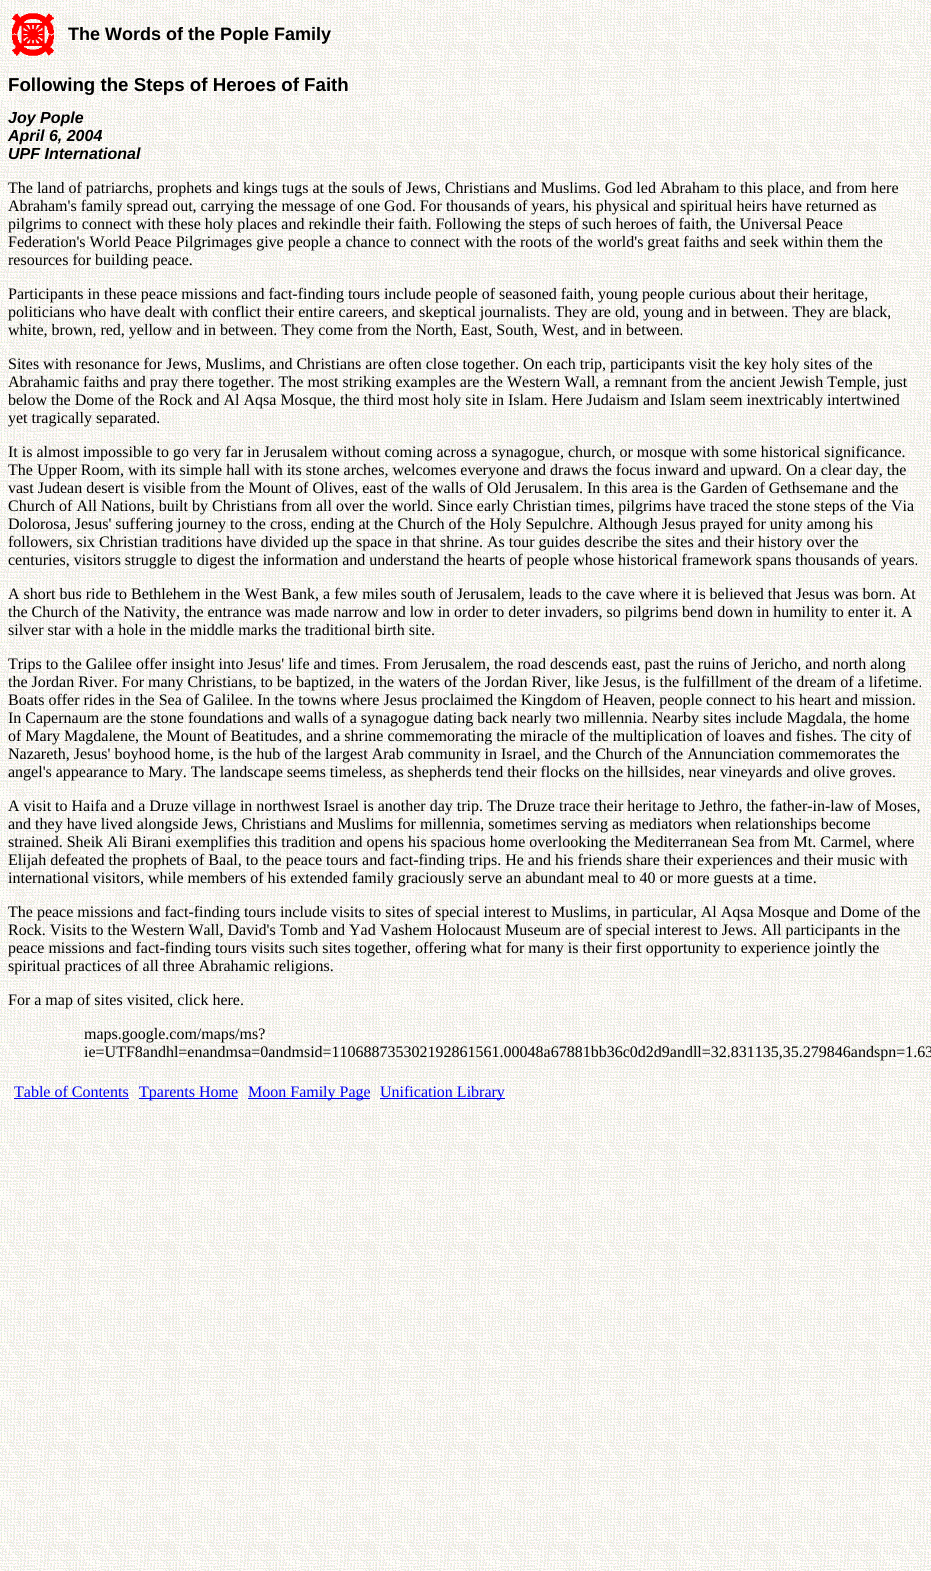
#include <cairo.h>
#include <math.h>
#include <stddef.h>


static void picture(cairo_t *cr, const char *path, double x, double y, double w, double h) {
    cairo_surface_t *image = cairo_image_surface_create_from_png(path);
    cairo_save(cr);
    cairo_set_source_surface(cr, image, x, y);
    cairo_rectangle(cr, x, y, w, h);
    cairo_fill(cr);
    cairo_restore(cr);
    cairo_surface_destroy(image);
}

int main(void) {
    cairo_surface_t *surface = cairo_image_surface_create(CAIRO_FORMAT_RGB24, 931, 1571);
    cairo_t *cr = cairo_create(surface);
    cairo_font_options_t *options = cairo_font_options_create();
    cairo_font_options_set_hint_metrics(options, CAIRO_HINT_METRICS_OFF);
    cairo_font_options_set_hint_style(options, CAIRO_HINT_STYLE_NONE);
    cairo_set_font_options(cr, options);
    cairo_set_miter_limit(cr, 4);
    cairo_set_source_rgb(cr, 1, 1, 1);
    cairo_paint(cr);
    picture(cr, "img1.png", 0, 0, 931, 1571);
    picture(cr, "img2.png", 12, 13, 42, 43);
    cairo_select_font_face(cr, "Liberation Sans", CAIRO_FONT_SLANT_NORMAL, CAIRO_FONT_WEIGHT_BOLD);
    cairo_set_font_size(cr, 18);
    cairo_set_source_rgb(cr, 0, 0, 0);
    cairo_move_to(cr, 68, 40);
    cairo_show_text(cr, "The Words of the Pople Family");
    cairo_set_font_size(cr, 18.7);
    cairo_move_to(cr, 8, 91);
    cairo_show_text(cr, "Following the Steps of Heroes of Faith");
    cairo_select_font_face(cr, "Liberation Sans", CAIRO_FONT_SLANT_ITALIC, CAIRO_FONT_WEIGHT_BOLD);
    cairo_set_font_size(cr, 16);
    cairo_move_to(cr, 8, 123);
    cairo_show_text(cr, "Joy Pople");
    cairo_move_to(cr, 8, 141);
    cairo_show_text(cr, "April 6, 2004");
    cairo_move_to(cr, 8, 159);
    cairo_show_text(cr, "UPF International");
    cairo_select_font_face(cr, "Liberation Serif", CAIRO_FONT_SLANT_NORMAL, CAIRO_FONT_WEIGHT_NORMAL);
    cairo_move_to(cr, 8, 193);
    cairo_show_text(cr, "The land of patriarchs, prophets and kings tugs at the souls of Jews, Christians and Muslims. God led Abraham to this place, and from here");
    cairo_move_to(cr, 8, 211);
    cairo_show_text(cr, "Abraham's family spread out, carrying the message of one God. For thousands of years, his physical and spiritual heirs have returned as");
    cairo_move_to(cr, 8, 229);
    cairo_show_text(cr, "pilgrims to connect with these holy places and rekindle their faith. Following the steps of such heroes of faith, the Universal Peace");
    cairo_move_to(cr, 8, 247);
    cairo_show_text(cr, "Federation's World Peace Pilgrimages give people a chance to connect with the roots of the world's great faiths and seek within them the");
    cairo_move_to(cr, 8, 265);
    cairo_show_text(cr, "resources for building peace.");
    cairo_move_to(cr, 8, 299);
    cairo_show_text(cr, "Participants in these peace missions and fact-finding tours include people of seasoned faith, young people curious about their heritage,");
    cairo_move_to(cr, 8, 317);
    cairo_show_text(cr, "politicians who have dealt with conflict their entire careers, and skeptical journalists. They are old, young and in between. They are black,");
    cairo_move_to(cr, 8, 335);
    cairo_show_text(cr, "white, brown, red, yellow and in between. They come from the North, East, South, West, and in between.");
    cairo_move_to(cr, 8, 369);
    cairo_show_text(cr, "Sites with resonance for Jews, Muslims, and Christians are often close together. On each trip, participants visit the key holy sites of the");
    cairo_move_to(cr, 8, 387);
    cairo_show_text(cr, "Abrahamic faiths and pray there together. The most striking examples are the Western Wall, a remnant from the ancient Jewish Temple, just");
    cairo_move_to(cr, 8, 405);
    cairo_show_text(cr, "below the Dome of the Rock and Al Aqsa Mosque, the third most holy site in Islam. Here Judaism and Islam seem inextricably intertwined");
    cairo_move_to(cr, 8, 423);
    cairo_show_text(cr, "yet tragically separated.");
    cairo_move_to(cr, 8, 457);
    cairo_show_text(cr, "It is almost impossible to go very far in Jerusalem without coming across a synagogue, church, or mosque with some historical significance.");
    cairo_move_to(cr, 8, 475);
    cairo_show_text(cr, "The Upper Room, with its simple hall with its stone arches, welcomes everyone and draws the focus inward and upward. On a clear day, the");
    cairo_move_to(cr, 8, 493);
    cairo_show_text(cr, "vast Judean desert is visible from the Mount of Olives, east of the walls of Old Jerusalem. In this area is the Garden of Gethsemane and the");
    cairo_move_to(cr, 8, 511);
    cairo_show_text(cr, "Church of All Nations, built by Christians from all over the world. Since early Christian times, pilgrims have traced the stone steps of the Via");
    cairo_move_to(cr, 8, 529);
    cairo_show_text(cr, "Dolorosa, Jesus' suffering journey to the cross, ending at the Church of the Holy Sepulchre. Although Jesus prayed for unity among his");
    cairo_move_to(cr, 8, 547);
    cairo_show_text(cr, "followers, six Christian traditions have divided up the space in that shrine. As tour guides describe the sites and their history over the");
    cairo_move_to(cr, 8, 565);
    cairo_show_text(cr, "centuries, visitors struggle to digest the information and understand the hearts of people whose historical framework spans thousands of years.");
    cairo_move_to(cr, 8, 599);
    cairo_show_text(cr, "A short bus ride to Bethlehem in the West Bank, a few miles south of Jerusalem, leads to the cave where it is believed that Jesus was born. At");
    cairo_move_to(cr, 8, 617);
    cairo_show_text(cr, "the Church of the Nativity, the entrance was made narrow and low in order to deter invaders, so pilgrims bend down in humility to enter it. A");
    cairo_move_to(cr, 8, 635);
    cairo_show_text(cr, "silver star with a hole in the middle marks the traditional birth site.");
    cairo_move_to(cr, 8, 669);
    cairo_show_text(cr, "Trips to the Galilee offer insight into Jesus' life and times. From Jerusalem, the road descends east, past the ruins of Jericho, and north along");
    cairo_move_to(cr, 8, 687);
    cairo_show_text(cr, "the Jordan River. For many Christians, to be baptized, in the waters of the Jordan River, like Jesus, is the fulfillment of the dream of a lifetime.");
    cairo_move_to(cr, 8, 705);
    cairo_show_text(cr, "Boats offer rides in the Sea of Galilee. In the towns where Jesus proclaimed the Kingdom of Heaven, people connect to his heart and mission.");
    cairo_move_to(cr, 8, 723);
    cairo_show_text(cr, "In Capernaum are the stone foundations and walls of a synagogue dating back nearly two millennia. Nearby sites include Magdala, the home");
    cairo_move_to(cr, 8, 741);
    cairo_show_text(cr, "of Mary Magdalene, the Mount of Beatitudes, and a shrine commemorating the miracle of the multiplication of loaves and fishes. The city of");
    cairo_move_to(cr, 8, 759);
    cairo_show_text(cr, "Nazareth, Jesus' boyhood home, is the hub of the largest Arab community in Israel, and the Church of the Annunciation commemorates the");
    cairo_move_to(cr, 8, 777);
    cairo_show_text(cr, "angel's appearance to Mary. The landscape seems timeless, as shepherds tend their flocks on the hillsides, near vineyards and olive groves.");
    cairo_move_to(cr, 8, 811);
    cairo_show_text(cr, "A visit to Haifa and a Druze village in northwest Israel is another day trip. The Druze trace their heritage to Jethro, the father-in-law of Moses,");
    cairo_move_to(cr, 8, 829);
    cairo_show_text(cr, "and they have lived alongside Jews, Christians and Muslims for millennia, sometimes serving as mediators when relationships become");
    cairo_move_to(cr, 8, 847);
    cairo_show_text(cr, "strained. Sheik Ali Birani exemplifies this tradition and opens his spacious home overlooking the Mediterranean Sea from Mt. Carmel, where");
    cairo_move_to(cr, 8, 865);
    cairo_show_text(cr, "Elijah defeated the prophets of Baal, to the peace tours and fact-finding trips. He and his friends share their experiences and their music with");
    cairo_move_to(cr, 8, 883);
    cairo_show_text(cr, "international visitors, while members of his extended family graciously serve an abundant meal to 40 or more guests at a time.");
    cairo_move_to(cr, 8, 917);
    cairo_show_text(cr, "The peace missions and fact-finding tours include visits to sites of special interest to Muslims, in particular, Al Aqsa Mosque and Dome of the");
    cairo_move_to(cr, 8, 935);
    cairo_show_text(cr, "Rock. Visits to the Western Wall, David's Tomb and Yad Vashem Holocaust Museum are of special interest to Jews. All participants in the");
    cairo_move_to(cr, 8, 953);
    cairo_show_text(cr, "peace missions and fact-finding tours visits such sites together, offering what for many is their first opportunity to experience jointly the");
    cairo_move_to(cr, 8, 971);
    cairo_show_text(cr, "spiritual practices of all three Abrahamic religions.");
    cairo_move_to(cr, 8, 1005);
    cairo_show_text(cr, "For a map of sites visited, click here.");
    cairo_move_to(cr, 84, 1039);
    cairo_show_text(cr, "maps.google.com/maps/ms?");
    cairo_move_to(cr, 84, 1057);
    cairo_show_text(cr, "ie=UTF8andhl=enandmsa=0andmsid=110688735302192861561.00048a67881bb36c0d2d9andll=32.831135,35.279846andspn=1.63");
    cairo_set_source_rgb(cr, 0, 0, 0.933);
    cairo_move_to(cr, 14, 1097);
    cairo_show_text(cr, "Table of Contents");
    cairo_rectangle(cr, 14, 1098, 115, 1);
    cairo_fill(cr);
    cairo_rectangle(cr, 139, 1098, 99, 1);
    cairo_fill(cr);
    cairo_move_to(cr, 139, 1097);
    cairo_show_text(cr, "Tparents Home");
    cairo_rectangle(cr, 248, 1098, 122, 1);
    cairo_fill(cr);
    cairo_move_to(cr, 248, 1097);
    cairo_show_text(cr, "Moon Family Page");
    cairo_rectangle(cr, 380, 1098, 125, 1);
    cairo_fill(cr);
    cairo_move_to(cr, 380, 1097);
    cairo_show_text(cr, "Unification Library");
    cairo_surface_write_to_png(surface, "page.png");
    cairo_font_options_destroy(options);
    cairo_destroy(cr);
    cairo_surface_destroy(surface);
    return 0;
}
